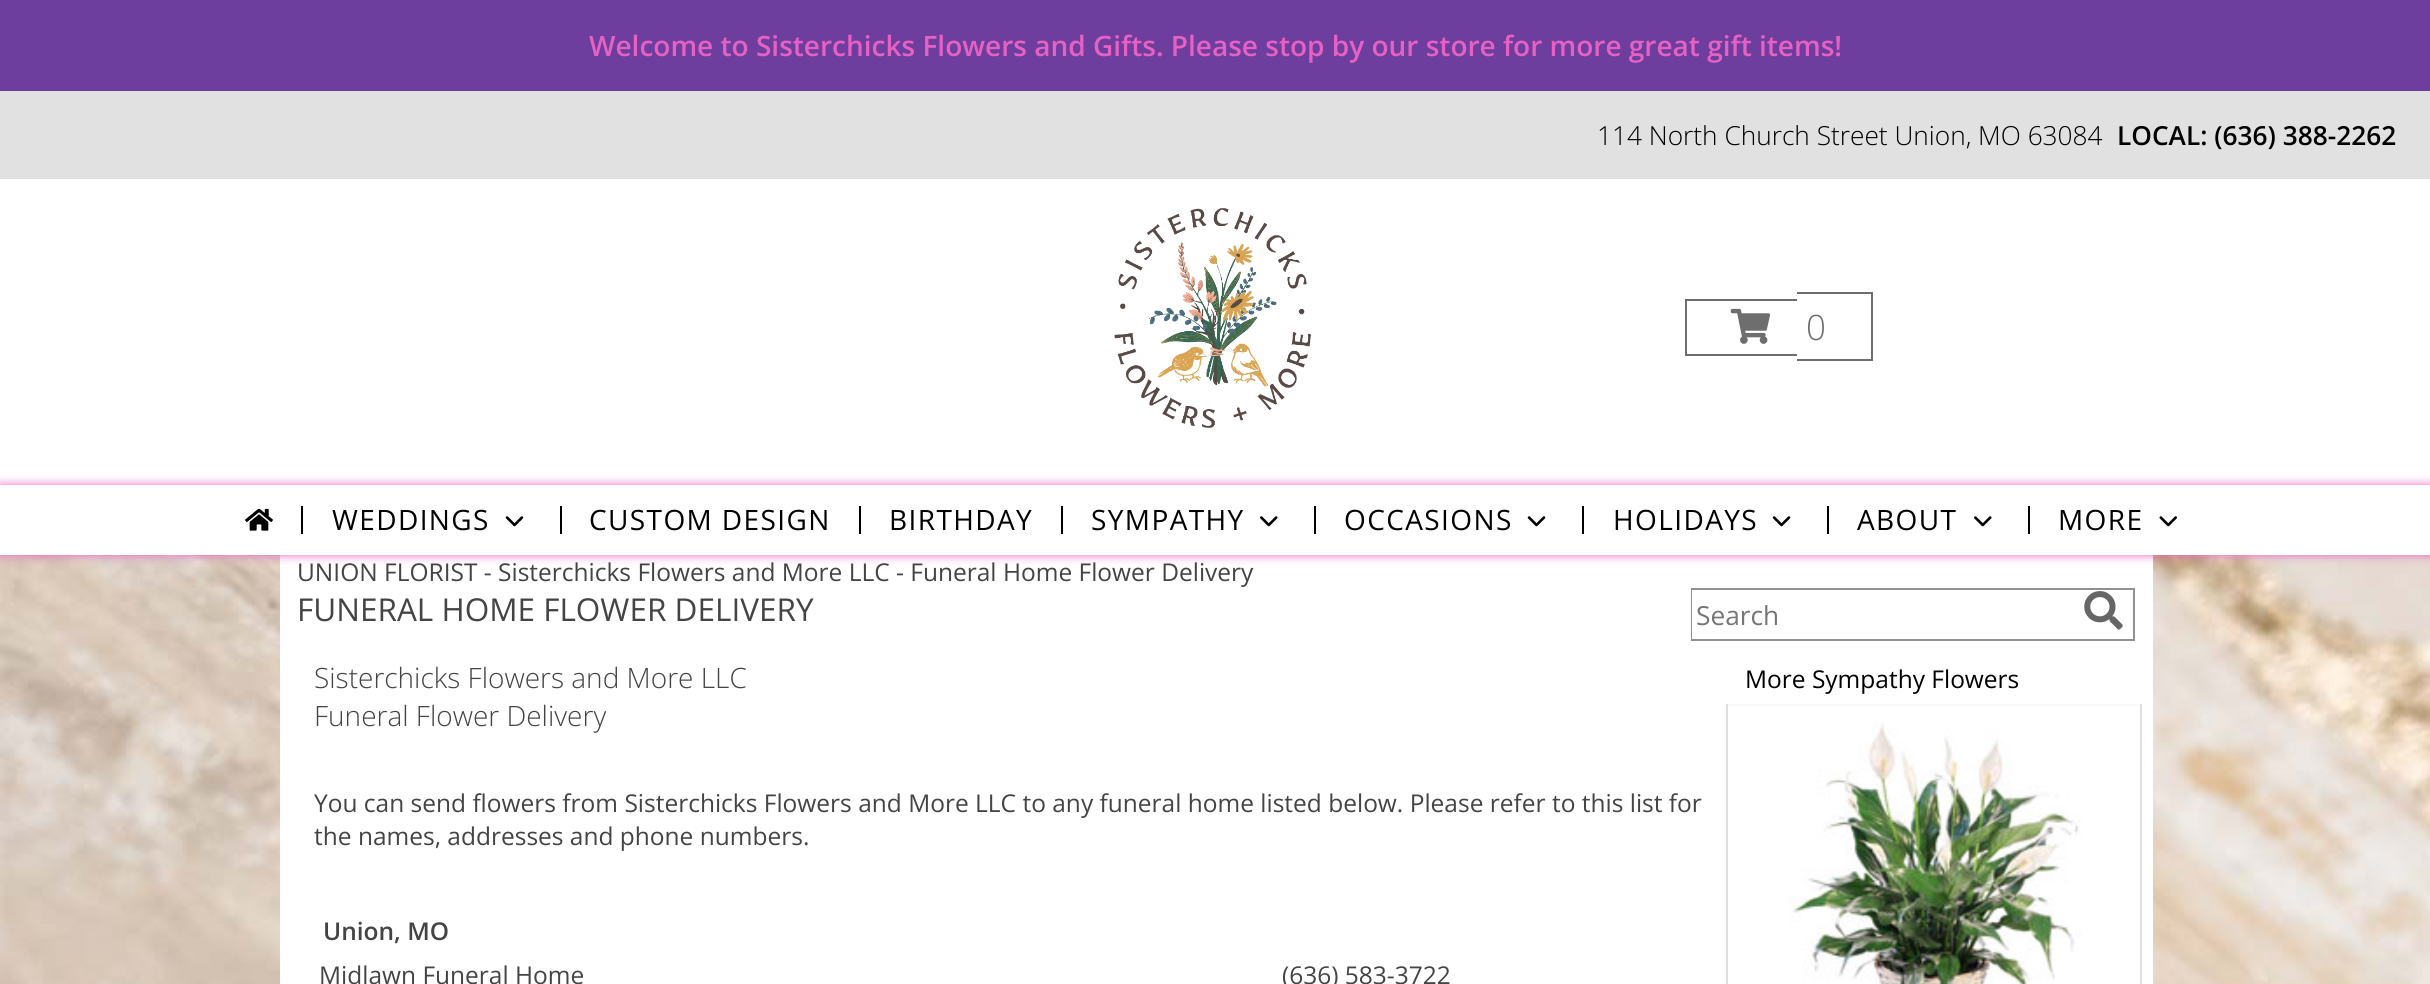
#include <cairo.h>
#include <math.h>
#include <stddef.h>


static void spaced_text(cairo_t *cr, double x, double y, const char *s, double letter, double word) {
    cairo_move_to(cr, x, y);
    while (*s) {
        char ch[5] = {0};
        int n = 0;
        do ch[n++] = *s++; while ((*s & 0xC0) == 0x80);
        cairo_show_text(cr, ch);
        cairo_rel_move_to(cr, letter + word * (*ch == ' '), 0);
    }
}

static void round_rect(cairo_t *cr, double x, double y, double w, double h, double r) {
    cairo_new_sub_path(cr);
    cairo_arc(cr, x + w - r, y + h - r, r, 0, M_PI / 2);
    cairo_arc(cr, x + r, y + h - r, r, M_PI / 2, M_PI);
    cairo_arc(cr, x + r, y + r, r, M_PI, 1.5 * M_PI);
    cairo_arc(cr, x + w - r, y + r, r, 1.5 * M_PI, 2 * M_PI);
    cairo_close_path(cr);
}

static void shadow(cairo_t *cr, double x, double y, double w, double h, double r, double blur, double alpha) {
    cairo_push_group_with_content(cr, CAIRO_CONTENT_ALPHA);
    cairo_set_operator(cr, CAIRO_OPERATOR_SOURCE);
    for (int i = 15; i >= -15 && fmin(w, h) + blur * i / 3 > 0; i -= 2) {
        double e = blur * i / 6;
        cairo_set_source_rgba(cr, 0, 0, 0, alpha * erfc((i - 1) / 8.5) / 2);
        round_rect(cr, x - e, y - e, w + 2 * e, h + 2 * e, fmax(0, fmin(r + e + blur * .6, fmin(w, h) / 2 + e)));
        cairo_fill(cr);
    }
    cairo_pattern_t *soft = cairo_pop_group(cr);
    cairo_mask(cr, soft);
    cairo_pattern_destroy(soft);
}

static void picture(cairo_t *cr, const char *path, double x, double y, double w, double h) {
    cairo_surface_t *image = cairo_image_surface_create_from_png(path);
    cairo_save(cr);
    cairo_set_source_surface(cr, image, x, y);
    cairo_rectangle(cr, x, y, w, h);
    cairo_fill(cr);
    cairo_restore(cr);
    cairo_surface_destroy(image);
}

int main(void) {
    cairo_surface_t *surface = cairo_image_surface_create(CAIRO_FORMAT_RGB24, 2430, 984);
    cairo_t *cr = cairo_create(surface);
    cairo_font_options_t *options = cairo_font_options_create();
    cairo_font_options_set_hint_metrics(options, CAIRO_HINT_METRICS_OFF);
    cairo_font_options_set_hint_style(options, CAIRO_HINT_STYLE_NONE);
    cairo_set_font_options(cr, options);
    cairo_set_miter_limit(cr, 4);
    cairo_set_source_rgb(cr, 1, 1, 1);
    cairo_paint(cr);
    picture(cr, "img1.png", 0, 555, 2430, 429);
    cairo_set_source_rgb(cr, 1, 1, 1);
    cairo_rectangle(cr, 280, 555, 1873, 429);
    cairo_fill(cr);
    cairo_set_source_rgb(cr, 0.427, 0.243, 0.62);
    cairo_rectangle(cr, 0, 0, 2430, 91);
    cairo_fill(cr);
    cairo_select_font_face(cr, "Open Sans SemiBold", CAIRO_FONT_SLANT_NORMAL, CAIRO_FONT_WEIGHT_NORMAL);
    cairo_set_font_size(cr, 28);
    cairo_set_source_rgb(cr, 0.906, 0.38, 0.769);
    cairo_move_to(cr, 589, 56);
    cairo_show_text(cr, "Welcome to Sisterchicks Flowers and Gifts. Please stop by our store for more great gift items!");
    cairo_set_source_rgb(cr, 0.882, 0.882, 0.882);
    cairo_rectangle(cr, 0, 91, 2430, 88);
    cairo_fill(cr);
    cairo_select_font_face(cr, "Open Sans Light", CAIRO_FONT_SLANT_NORMAL, CAIRO_FONT_WEIGHT_NORMAL);
    cairo_set_font_size(cr, 26.25);
    cairo_set_source_rgb(cr, 0, 0, 0);
    cairo_move_to(cr, 1597, 145);
    cairo_show_text(cr, "114 North Church Street Union, MO 63084");
    cairo_select_font_face(cr, "Open Sans SemiBold", CAIRO_FONT_SLANT_NORMAL, CAIRO_FONT_WEIGHT_NORMAL);
    cairo_move_to(cr, 2117, 145);
    cairo_show_text(cr, "LOCAL: (636) 388-2262");
    picture(cr, "img2.png", 1114, 208, 198, 220);
    cairo_set_source_rgb(cr, 0.431, 0.431, 0.431);
    cairo_rectangle(cr, 1685, 299, 112, 2);
    cairo_fill(cr);
    cairo_rectangle(cr, 1685, 354, 112, 2);
    cairo_fill(cr);
    cairo_rectangle(cr, 1685, 299, 2, 56);
    cairo_fill(cr);
    cairo_rectangle(cr, 1797, 292, 76, 2);
    cairo_fill(cr);
    cairo_rectangle(cr, 1797, 359, 9, 2);
    cairo_fill(cr);
    cairo_rectangle(cr, 1871, 292, 2, 69);
    cairo_fill(cr);
    cairo_rectangle(cr, 1806, 359, 67, 2);
    cairo_fill(cr);
    picture(cr, "img3.png", 1730, 308, 41, 36);
    cairo_select_font_face(cr, "Open Sans Light", CAIRO_FONT_SLANT_NORMAL, CAIRO_FONT_WEIGHT_NORMAL);
    cairo_set_font_size(cr, 35);
    cairo_move_to(cr, 1806, 340);
    cairo_show_text(cr, "0");
    cairo_set_source_rgb(cr, 0.906, 0.38, 0.769);
    shadow(cr, 0, 485, 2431, 70, 0, 5, 1);
    cairo_set_source_rgb(cr, 1, 1, 1);
    cairo_rectangle(cr, 0, 485, 2430, 70);
    cairo_fill(cr);
    picture(cr, "img4.png", 245, 508, 28, 23);
    cairo_set_source_rgb(cr, 0, 0, 0);
    cairo_rectangle(cr, 301, 506, 2, 28);
    cairo_fill(cr);
    cairo_select_font_face(cr, "Open Sans", CAIRO_FONT_SLANT_NORMAL, CAIRO_FONT_WEIGHT_NORMAL);
    cairo_set_font_size(cr, 28);
    spaced_text(cr, 332, 530, "WEDDINGS", 1.4, 0);
    picture(cr, "img5.png", 505, 516, 19, 11);
    cairo_rectangle(cr, 560, 506, 2, 28);
    cairo_fill(cr);
    spaced_text(cr, 589, 530, "CUSTOM DESIGN", 1.4, 0);
    cairo_rectangle(cr, 859, 506, 2, 28);
    cairo_fill(cr);
    spaced_text(cr, 889, 530, "BIRTHDAY", 1.4, 0);
    cairo_rectangle(cr, 1061, 506, 2, 28);
    cairo_fill(cr);
    spaced_text(cr, 1091, 530, "SYMPATHY", 1.4, 0);
    picture(cr, "img6.png", 1260, 516, 18, 11);
    cairo_rectangle(cr, 1314, 506, 2, 28);
    cairo_fill(cr);
    spaced_text(cr, 1344, 530, "OCCASIONS", 1.4, 0);
    picture(cr, "img5.png", 1527, 516, 19, 11);
    cairo_rectangle(cr, 1582, 506, 2, 28);
    cairo_fill(cr);
    spaced_text(cr, 1613, 530, "HOLIDAYS", 1.4, 0);
    picture(cr, "img5.png", 1772, 516, 19, 11);
    cairo_rectangle(cr, 1827, 506, 2, 28);
    cairo_fill(cr);
    spaced_text(cr, 1857, 530, "ABOUT", 1.4, 0);
    picture(cr, "img6.png", 1974, 516, 18, 11);
    cairo_rectangle(cr, 2028, 506, 2, 28);
    cairo_fill(cr);
    spaced_text(cr, 2058, 530, "MORE", 1.4, 0);
    picture(cr, "img7.png", 2159, 516, 18, 11);
    cairo_set_font_size(cr, 24.5);
    cairo_set_source_rgb(cr, 0.267, 0.267, 0.267);
    cairo_move_to(cr, 297, 581);
    cairo_show_text(cr, "UNION FLORIST - Sisterchicks Flowers and More LLC - Funeral Home Flower Delivery");
    cairo_set_font_size(cr, 31.5);
    cairo_move_to(cr, 297, 621);
    cairo_show_text(cr, "FUNERAL HOME FLOWER DELIVERY");
    cairo_rectangle(cr, 1692, 589, 442, 51);
    cairo_set_source_rgb(cr, 0.569, 0.569, 0.569);
    cairo_stroke(cr);
    cairo_set_source_rgb(cr, 1, 1, 1);
    cairo_rectangle(cr, 1692, 590, 1, 49);
    cairo_fill(cr);
    cairo_set_font_size(cr, 26.25);
    cairo_set_source_rgb(cr, 0.459, 0.459, 0.459);
    cairo_move_to(cr, 1696, 625);
    cairo_show_text(cr, "Search");
    picture(cr, "img8.png", 2084, 591, 39, 39);
    cairo_select_font_face(cr, "Open Sans Light", CAIRO_FONT_SLANT_NORMAL, CAIRO_FONT_WEIGHT_NORMAL);
    cairo_set_font_size(cr, 28);
    cairo_set_source_rgb(cr, 0.267, 0.267, 0.267);
    cairo_move_to(cr, 314, 688);
    cairo_show_text(cr, "Sisterchicks Flowers and More LLC");
    cairo_move_to(cr, 314, 726);
    cairo_show_text(cr, "Funeral Flower Delivery");
    cairo_select_font_face(cr, "Open Sans", CAIRO_FONT_SLANT_NORMAL, CAIRO_FONT_WEIGHT_NORMAL);
    cairo_set_font_size(cr, 24.5);
    cairo_move_to(cr, 314, 812);
    cairo_show_text(cr, "You can send flowers from Sisterchicks Flowers and More LLC to any funeral home listed below. Please refer to this list for");
    cairo_move_to(cr, 314, 845);
    cairo_show_text(cr, "the names, addresses and phone numbers.");
    cairo_select_font_face(cr, "Open Sans SemiBold", CAIRO_FONT_SLANT_NORMAL, CAIRO_FONT_WEIGHT_NORMAL);
    cairo_move_to(cr, 323, 940);
    cairo_show_text(cr, "Union, MO");
    cairo_select_font_face(cr, "Open Sans", CAIRO_FONT_SLANT_NORMAL, CAIRO_FONT_WEIGHT_NORMAL);
    cairo_move_to(cr, 319, 984);
    cairo_show_text(cr, "Midlawn Funeral Home");
    cairo_move_to(cr, 1282, 984);
    cairo_show_text(cr, "(636) 583-3722");
    cairo_set_source_rgb(cr, 0, 0, 0);
    cairo_move_to(cr, 1745, 688);
    cairo_show_text(cr, "More Sympathy Flowers");
    cairo_set_source_rgb(cr, 0.976, 0.976, 0.976);
    cairo_rectangle(cr, 1726, 704, 416, 2);
    cairo_fill(cr);
    cairo_set_source_rgb(cr, 0.886, 0.871, 0.867);
    cairo_rectangle(cr, 2140, 704, 2, 280);
    cairo_fill(cr);
    cairo_rectangle(cr, 1726, 704, 2, 280);
    cairo_fill(cr);
    picture(cr, "img9.png", 1788, 723, 293, 261);
    cairo_surface_write_to_png(surface, "page.png");
    cairo_font_options_destroy(options);
    cairo_destroy(cr);
    cairo_surface_destroy(surface);
    return 0;
}
